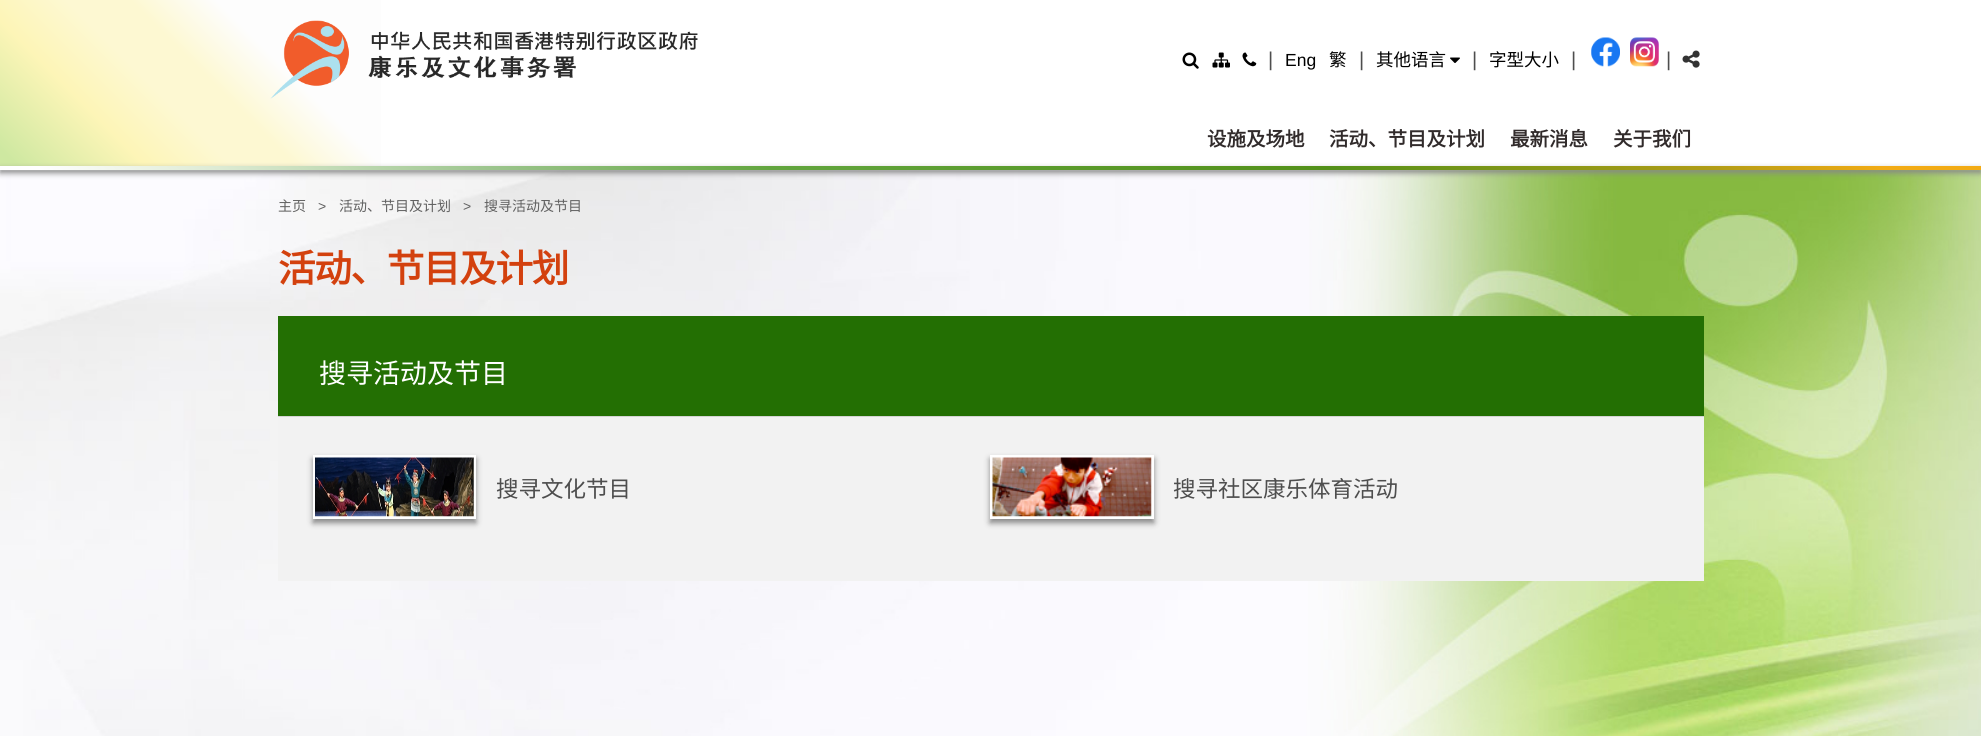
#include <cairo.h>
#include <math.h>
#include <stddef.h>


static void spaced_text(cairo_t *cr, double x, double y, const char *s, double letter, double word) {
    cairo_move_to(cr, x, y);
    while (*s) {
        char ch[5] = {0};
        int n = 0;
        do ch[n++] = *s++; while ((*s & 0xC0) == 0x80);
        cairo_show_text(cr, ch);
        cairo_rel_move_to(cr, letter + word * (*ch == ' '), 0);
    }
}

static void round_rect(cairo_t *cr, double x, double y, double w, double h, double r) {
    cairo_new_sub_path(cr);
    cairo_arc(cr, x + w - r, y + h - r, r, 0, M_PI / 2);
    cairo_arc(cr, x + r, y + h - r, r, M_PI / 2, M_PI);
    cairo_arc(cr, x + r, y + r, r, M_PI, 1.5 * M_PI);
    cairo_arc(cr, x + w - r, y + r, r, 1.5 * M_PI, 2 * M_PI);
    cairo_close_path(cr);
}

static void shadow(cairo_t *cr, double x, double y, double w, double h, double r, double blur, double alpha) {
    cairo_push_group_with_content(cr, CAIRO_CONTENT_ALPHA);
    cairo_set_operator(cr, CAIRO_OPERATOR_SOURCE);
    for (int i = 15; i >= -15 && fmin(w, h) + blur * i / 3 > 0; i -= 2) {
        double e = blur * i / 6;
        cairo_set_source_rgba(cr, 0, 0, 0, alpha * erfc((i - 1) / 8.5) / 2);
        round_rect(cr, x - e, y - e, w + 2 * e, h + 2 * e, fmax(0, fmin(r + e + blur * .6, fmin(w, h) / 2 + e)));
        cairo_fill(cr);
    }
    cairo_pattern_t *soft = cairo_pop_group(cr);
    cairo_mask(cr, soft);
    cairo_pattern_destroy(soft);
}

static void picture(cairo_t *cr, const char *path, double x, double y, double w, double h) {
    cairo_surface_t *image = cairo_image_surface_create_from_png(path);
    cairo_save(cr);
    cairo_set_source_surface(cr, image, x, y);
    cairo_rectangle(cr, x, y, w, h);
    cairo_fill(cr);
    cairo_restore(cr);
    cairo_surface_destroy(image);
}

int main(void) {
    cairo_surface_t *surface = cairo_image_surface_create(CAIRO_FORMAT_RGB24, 1981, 736);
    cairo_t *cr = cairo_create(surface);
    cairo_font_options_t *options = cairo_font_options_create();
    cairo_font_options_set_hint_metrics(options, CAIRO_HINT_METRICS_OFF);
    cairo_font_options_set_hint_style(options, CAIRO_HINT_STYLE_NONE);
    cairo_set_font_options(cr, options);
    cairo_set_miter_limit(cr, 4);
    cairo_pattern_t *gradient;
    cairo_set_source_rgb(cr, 1, 1, 1);
    cairo_paint(cr);
    picture(cr, "img1.png", 0, 170, 1981, 566);
    gradient = cairo_pattern_create_linear(453, 623, 1528, -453);
    cairo_pattern_add_color_stop_rgba(gradient, 0.01, 0.808, 0.91, 0.631, 1);
    cairo_pattern_add_color_stop_rgba(gradient, 0.07, 0.992, 0.961, 0.718, 1);
    cairo_pattern_add_color_stop_rgba(gradient, 0.11, 0.992, 0.973, 0.824, 1);
    cairo_pattern_add_color_stop_rgba(gradient, 0.14, 0.992, 0.973, 0.824, 1);
    cairo_pattern_add_color_stop_rgba(gradient, 0.18, 0.992, 0.992, 0.992, 1);
    cairo_set_source(cr, gradient);
    cairo_pattern_destroy(gradient);
    cairo_rectangle(cr, 0, 0, 381, 166);
    cairo_fill(cr);
    picture(cr, "img2.png", 270, 20, 428, 79);
    picture(cr, "img3.png", 1182, 52, 17, 17);
    picture(cr, "img4.png", 1212, 52, 18, 16);
    picture(cr, "img5.png", 1242, 52, 15, 15);
    cairo_select_font_face(cr, "Liberation Sans", CAIRO_FONT_SLANT_NORMAL, CAIRO_FONT_WEIGHT_NORMAL);
    cairo_set_font_size(cr, 20);
    cairo_set_source_rgb(cr, 0.306, 0.306, 0.306);
    cairo_move_to(cr, 1268, 66);
    cairo_show_text(cr, "|");
    cairo_set_font_size(cr, 17.5);
    cairo_set_source_rgb(cr, 0, 0, 0);
    cairo_move_to(cr, 1285, 66);
    cairo_show_text(cr, "Eng");
    cairo_select_font_face(cr, "Noto Sans CJK SC", CAIRO_FONT_SLANT_NORMAL, CAIRO_FONT_WEIGHT_NORMAL);
    cairo_move_to(cr, 1329, 66);
    cairo_show_text(cr, "繁");
    cairo_select_font_face(cr, "Liberation Sans", CAIRO_FONT_SLANT_NORMAL, CAIRO_FONT_WEIGHT_NORMAL);
    cairo_set_font_size(cr, 20);
    cairo_set_source_rgb(cr, 0.306, 0.306, 0.306);
    cairo_move_to(cr, 1359, 66);
    cairo_show_text(cr, "|");
    cairo_select_font_face(cr, "Noto Sans CJK SC", CAIRO_FONT_SLANT_NORMAL, CAIRO_FONT_WEIGHT_NORMAL);
    cairo_set_font_size(cr, 17.5);
    cairo_set_source_rgb(cr, 0, 0, 0);
    cairo_move_to(cr, 1376, 66);
    cairo_show_text(cr, "其他语言");
    picture(cr, "img6.png", 1450, 57, 10, 6);
    cairo_select_font_face(cr, "Liberation Sans", CAIRO_FONT_SLANT_NORMAL, CAIRO_FONT_WEIGHT_NORMAL);
    cairo_set_font_size(cr, 20);
    cairo_set_source_rgb(cr, 0.306, 0.306, 0.306);
    cairo_move_to(cr, 1472, 66);
    cairo_show_text(cr, "|");
    cairo_select_font_face(cr, "Noto Sans CJK SC", CAIRO_FONT_SLANT_NORMAL, CAIRO_FONT_WEIGHT_NORMAL);
    cairo_set_font_size(cr, 17.5);
    cairo_set_source_rgb(cr, 0, 0, 0);
    cairo_move_to(cr, 1489, 66);
    cairo_show_text(cr, "字型大小");
    cairo_select_font_face(cr, "Liberation Sans", CAIRO_FONT_SLANT_NORMAL, CAIRO_FONT_WEIGHT_NORMAL);
    cairo_set_font_size(cr, 20);
    cairo_set_source_rgb(cr, 0.306, 0.306, 0.306);
    cairo_move_to(cr, 1571, 66);
    cairo_show_text(cr, "|");
    picture(cr, "img7.png", 1591, 37, 29, 30);
    picture(cr, "img8.png", 1630, 37, 29, 30);
    cairo_move_to(cr, 1666, 66);
    cairo_show_text(cr, "|");
    picture(cr, "img9.png", 1682, 50, 18, 18);
    cairo_select_font_face(cr, "Noto Sans CJK SC", CAIRO_FONT_SLANT_NORMAL, CAIRO_FONT_WEIGHT_BOLD);
    cairo_set_font_size(cr, 19.5);
    cairo_set_source_rgb(cr, 0.192, 0.169, 0.169);
    cairo_move_to(cr, 1207, 146);
    cairo_show_text(cr, "设施及场地");
    cairo_move_to(cr, 1329, 146);
    cairo_show_text(cr, "活动、节目及计划");
    cairo_move_to(cr, 1510, 146);
    cairo_show_text(cr, "最新消息");
    cairo_move_to(cr, 1613, 146);
    cairo_show_text(cr, "关于我们");
    cairo_set_source_rgb(cr, 0.533, 0.533, 0.533);
    shadow(cr, 0, 169, 1981, 4, 0, 3, 1);
    gradient = cairo_pattern_create_linear(494, 664, 1487, -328);
    cairo_pattern_add_color_stop_rgba(gradient, 0.02, 1, 1, 1, 1);
    cairo_pattern_add_color_stop_rgba(gradient, 0.11, 0.867, 0.922, 0.831, 1);
    cairo_pattern_add_color_stop_rgba(gradient, 0.25, 0.608, 0.769, 0.549, 1);
    cairo_pattern_add_color_stop_rgba(gradient, 0.39, 0.384, 0.647, 0.243, 1);
    cairo_pattern_add_color_stop_rgba(gradient, 0.67, 0.325, 0.565, 0.098, 1);
    cairo_pattern_add_color_stop_rgba(gradient, 0.86, 0.682, 0.612, 0.086, 1);
    cairo_pattern_add_color_stop_rgba(gradient, 0.95, 0.949, 0.671, 0.082, 1);
    cairo_set_source(cr, gradient);
    cairo_pattern_destroy(gradient);
    cairo_rectangle(cr, 0, 166, 1981, 4);
    cairo_fill(cr);
    cairo_select_font_face(cr, "Noto Sans CJK SC", CAIRO_FONT_SLANT_NORMAL, CAIRO_FONT_WEIGHT_NORMAL);
    cairo_set_font_size(cr, 14);
    cairo_set_source_rgb(cr, 0.38, 0.38, 0.38);
    cairo_move_to(cr, 278, 211);
    cairo_show_text(cr, "主页");
    cairo_select_font_face(cr, "Liberation Sans", CAIRO_FONT_SLANT_NORMAL, CAIRO_FONT_WEIGHT_NORMAL);
    cairo_move_to(cr, 318, 211);
    cairo_show_text(cr, ">");
    cairo_select_font_face(cr, "Noto Sans CJK SC", CAIRO_FONT_SLANT_NORMAL, CAIRO_FONT_WEIGHT_NORMAL);
    cairo_move_to(cr, 339, 211);
    cairo_show_text(cr, "活动、节目及计划");
    cairo_select_font_face(cr, "Liberation Sans", CAIRO_FONT_SLANT_NORMAL, CAIRO_FONT_WEIGHT_NORMAL);
    cairo_move_to(cr, 463, 211);
    cairo_show_text(cr, ">");
    cairo_select_font_face(cr, "Noto Sans CJK SC", CAIRO_FONT_SLANT_NORMAL, CAIRO_FONT_WEIGHT_NORMAL);
    cairo_move_to(cr, 484, 211);
    cairo_show_text(cr, "搜寻活动及节目");
    cairo_select_font_face(cr, "Noto Sans CJK SC", CAIRO_FONT_SLANT_NORMAL, CAIRO_FONT_WEIGHT_BOLD);
    cairo_set_font_size(cr, 37.5);
    cairo_set_source_rgb(cr, 0.827, 0.255, 0.055);
    spaced_text(cr, 278, 282, "活动、节目及计划", -1.25, 0);
    cairo_set_source_rgb(cr, 0.949, 0.949, 0.949);
    cairo_rectangle(cr, 278, 417, 1426, 164);
    cairo_fill(cr);
    cairo_set_source_rgb(cr, 0.137, 0.435, 0.012);
    cairo_rectangle(cr, 278, 316, 1426, 100);
    cairo_fill(cr);
    cairo_select_font_face(cr, "Noto Sans CJK SC", CAIRO_FONT_SLANT_NORMAL, CAIRO_FONT_WEIGHT_NORMAL);
    cairo_set_font_size(cr, 27);
    cairo_set_source_rgb(cr, 1, 1, 1);
    cairo_move_to(cr, 319, 383);
    cairo_show_text(cr, "搜寻活动及节目");
    cairo_set_source_rgb(cr, 0.831, 0.831, 0.831);
    cairo_rectangle(cr, 278, 416, 1426, 1);
    cairo_fill(cr);
    cairo_set_source_rgb(cr, 0.533, 0.533, 0.533);
    shadow(cr, 313, 459, 163, 64, 0, 3, 1);
    cairo_rectangle(cr, 314.5, 456.5, 160, 61);
    cairo_set_source_rgb(cr, 1, 1, 1);
    cairo_set_line_width(cr, 3);
    cairo_stroke(cr);
    picture(cr, "img10.png", 315, 457, 159, 60);
    cairo_set_font_size(cr, 22.5);
    cairo_set_source_rgb(cr, 0.306, 0.306, 0.306);
    cairo_move_to(cr, 496, 497);
    cairo_show_text(cr, "搜寻文化节目");
    cairo_set_source_rgb(cr, 0.533, 0.533, 0.533);
    shadow(cr, 990, 459, 164, 64, 0, 3, 1);
    cairo_rectangle(cr, 991.5, 456.5, 161, 61);
    cairo_set_source_rgb(cr, 1, 1, 1);
    cairo_stroke(cr);
    picture(cr, "img11.png", 992, 457, 160, 60);
    cairo_set_source_rgb(cr, 0.306, 0.306, 0.306);
    cairo_move_to(cr, 1173, 497);
    cairo_show_text(cr, "搜寻社区康乐体育活动");
    cairo_surface_write_to_png(surface, "page.png");
    cairo_font_options_destroy(options);
    cairo_destroy(cr);
    cairo_surface_destroy(surface);
    return 0;
}
